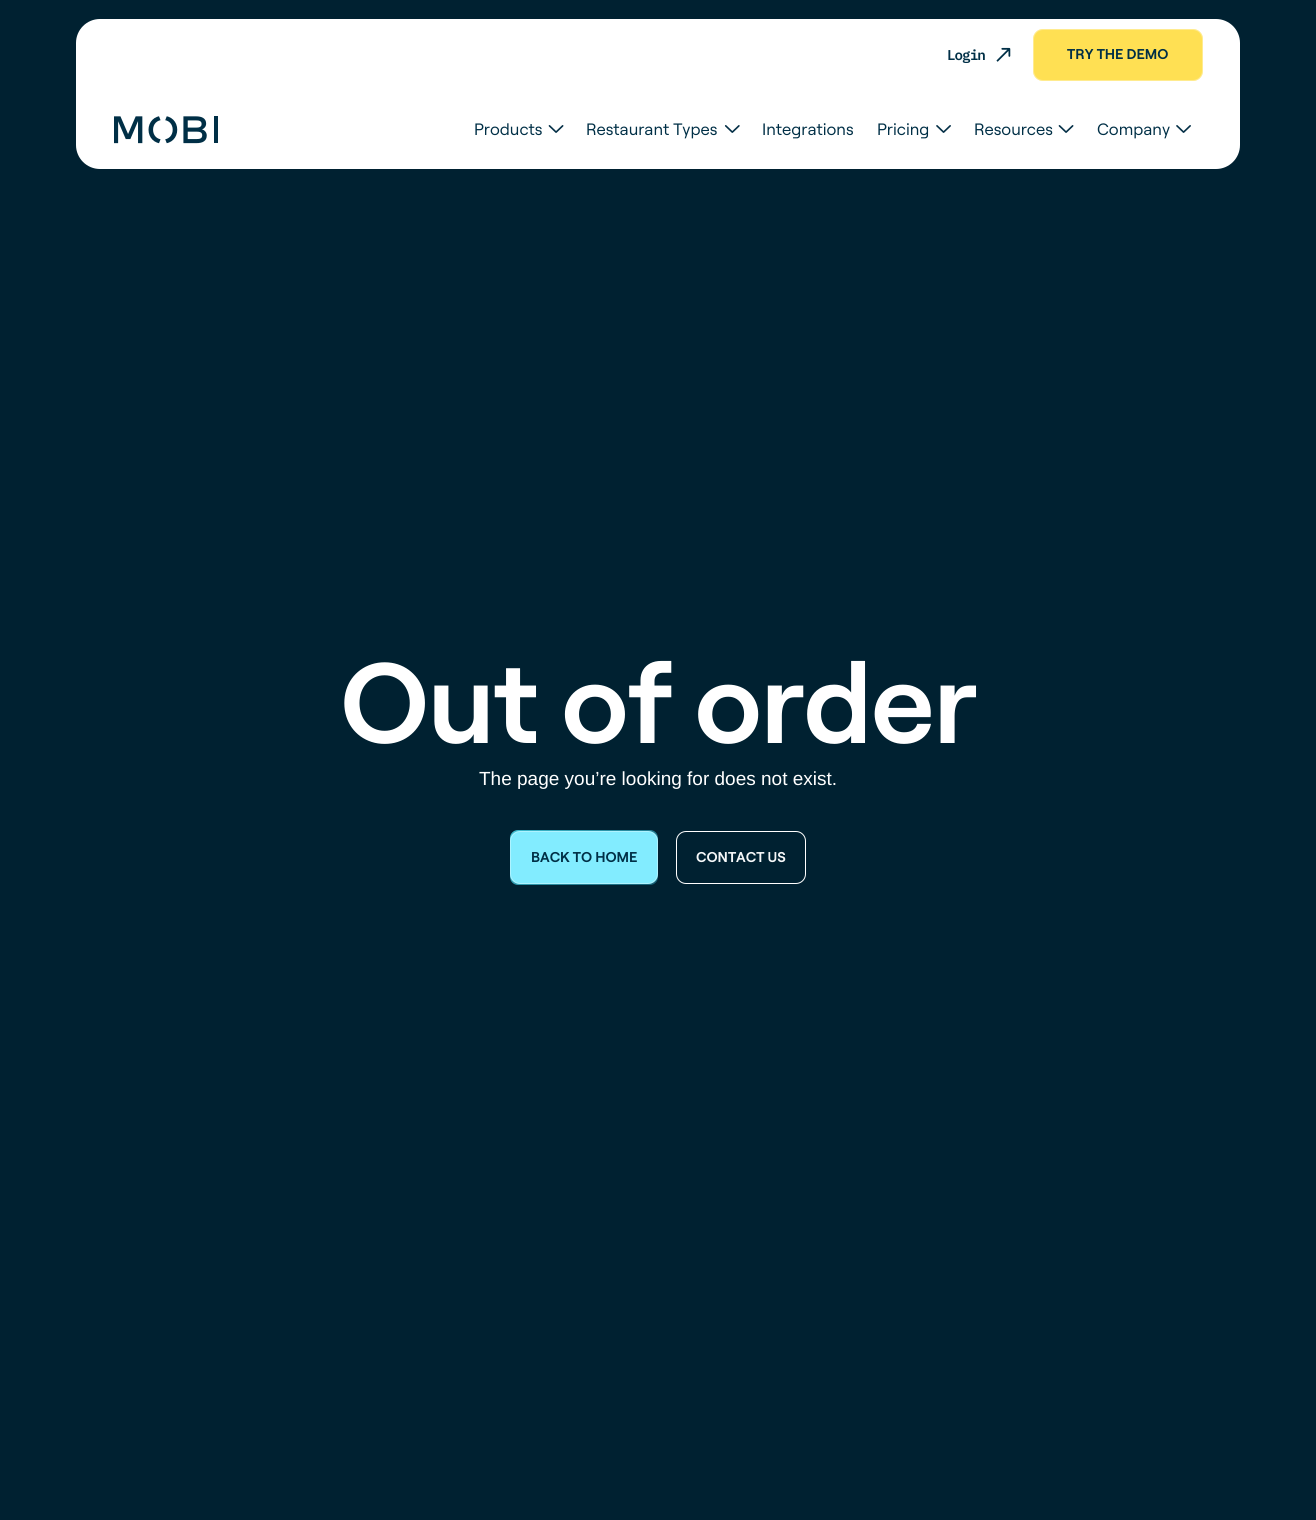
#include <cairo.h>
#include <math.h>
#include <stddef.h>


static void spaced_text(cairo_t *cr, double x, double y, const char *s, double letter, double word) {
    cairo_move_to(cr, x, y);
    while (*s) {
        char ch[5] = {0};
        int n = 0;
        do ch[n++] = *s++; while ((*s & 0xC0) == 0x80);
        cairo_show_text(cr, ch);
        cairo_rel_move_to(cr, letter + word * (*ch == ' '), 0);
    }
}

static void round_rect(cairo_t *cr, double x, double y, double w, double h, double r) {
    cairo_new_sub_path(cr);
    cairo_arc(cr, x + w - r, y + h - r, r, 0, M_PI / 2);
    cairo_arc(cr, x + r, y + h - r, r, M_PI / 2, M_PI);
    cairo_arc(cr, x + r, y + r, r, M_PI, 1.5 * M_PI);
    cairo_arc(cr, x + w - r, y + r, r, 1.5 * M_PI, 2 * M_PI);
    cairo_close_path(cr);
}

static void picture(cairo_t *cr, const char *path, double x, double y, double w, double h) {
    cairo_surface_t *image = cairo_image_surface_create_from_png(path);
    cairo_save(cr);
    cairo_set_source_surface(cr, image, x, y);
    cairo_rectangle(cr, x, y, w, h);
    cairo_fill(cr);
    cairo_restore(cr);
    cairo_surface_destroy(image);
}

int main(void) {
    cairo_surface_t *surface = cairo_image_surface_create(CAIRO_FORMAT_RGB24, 1316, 1520);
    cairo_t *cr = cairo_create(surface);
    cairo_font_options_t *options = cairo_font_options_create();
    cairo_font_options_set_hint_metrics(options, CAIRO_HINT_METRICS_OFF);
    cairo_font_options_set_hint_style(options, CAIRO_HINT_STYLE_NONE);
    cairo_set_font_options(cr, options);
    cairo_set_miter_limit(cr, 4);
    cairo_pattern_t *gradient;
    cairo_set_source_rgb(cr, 0, 0.129, 0.192);
    cairo_paint(cr);
    cairo_set_source_rgb(cr, 1, 1, 1);
    round_rect(cr, 76, 19, 1164, 150, 24);
    cairo_fill(cr);
    cairo_select_font_face(cr, "IBM Plex Mono SemiBold", CAIRO_FONT_SLANT_NORMAL, CAIRO_FONT_WEIGHT_NORMAL);
    cairo_set_font_size(cr, 14.25);
    cairo_set_source_rgb(cr, 0, 0.184, 0.275);
    spaced_text(cr, 947, 60, "Login", -1, 0);
    picture(cr, "img1.png", 996, 47, 15, 15);
    cairo_set_source_rgb(cr, 1, 0.878, 0.325);
    round_rect(cr, 1033, 29, 170, 52, 10);
    cairo_fill(cr);
    round_rect(cr, 1033.5, 29.5, 169, 51, 9.5);
    cairo_set_source_rgba(cr, 1, 1, 1, 0.35);
    cairo_set_line_width(cr, 1);
    cairo_stroke(cr);
    cairo_select_font_face(cr, "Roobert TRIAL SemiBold", CAIRO_FONT_SLANT_NORMAL, CAIRO_FONT_WEIGHT_NORMAL);
    cairo_set_source_rgb(cr, 0, 0.184, 0.275);
    cairo_move_to(cr, 1067, 59);
    cairo_show_text(cr, "TRY THE DEMO");
    picture(cr, "img2.png", 114, 116, 104, 28);
    cairo_select_font_face(cr, "Roobert TRIAL", CAIRO_FONT_SLANT_NORMAL, CAIRO_FONT_WEIGHT_NORMAL);
    cairo_set_font_size(cr, 16.5);
    cairo_move_to(cr, 474, 135);
    cairo_show_text(cr, "Products");
    picture(cr, "img3.png", 548, 125, 16, 8);
    cairo_move_to(cr, 586, 135);
    cairo_show_text(cr, "Restaurant Types");
    picture(cr, "img4.png", 724, 125, 16, 8);
    cairo_move_to(cr, 762, 135);
    cairo_show_text(cr, "Integrations");
    cairo_move_to(cr, 877, 135);
    cairo_show_text(cr, "Pricing");
    picture(cr, "img5.png", 936, 125, 15, 8);
    cairo_move_to(cr, 974, 135);
    cairo_show_text(cr, "Resources");
    picture(cr, "img3.png", 1058, 125, 16, 8);
    cairo_move_to(cr, 1097, 135);
    cairo_show_text(cr, "Company");
    picture(cr, "img5.png", 1176, 125, 15, 8);
    cairo_select_font_face(cr, "Roobert TRIAL SemiBold", CAIRO_FONT_SLANT_NORMAL, CAIRO_FONT_WEIGHT_NORMAL);
    cairo_set_font_size(cr, 114);
    cairo_set_source_rgb(cr, 1, 1, 1);
    spaced_text(cr, 340, 743, "Out of order", -1.25, 0);
    cairo_select_font_face(cr, "Liberation Sans", CAIRO_FONT_SLANT_NORMAL, CAIRO_FONT_WEIGHT_NORMAL);
    cairo_set_font_size(cr, 19);
    cairo_move_to(cr, 479, 785);
    cairo_show_text(cr, "The page you’re looking for does not exist.");
    gradient = cairo_pattern_create_linear(503, 751, 664, 964);
    cairo_pattern_add_color_stop_rgba(gradient, 0, 0.325, 0.933, 1, 1);
    cairo_pattern_add_color_stop_rgba(gradient, 1, 0.004, 0.184, 0.275, 1);
    cairo_set_source(cr, gradient);
    cairo_pattern_destroy(gradient);
    round_rect(cr, 510, 830, 148, 55, 8);
    cairo_fill(cr);
    cairo_set_source_rgb(cr, 0.51, 0.925, 1);
    round_rect(cr, 510, 831, 148, 53, 10);
    cairo_fill(cr);
    round_rect(cr, 510.5, 831.5, 147, 52, 9.5);
    cairo_set_source_rgba(cr, 1, 1, 1, 0.35);
    cairo_stroke(cr);
    cairo_select_font_face(cr, "Roobert TRIAL SemiBold", CAIRO_FONT_SLANT_NORMAL, CAIRO_FONT_WEIGHT_NORMAL);
    cairo_set_font_size(cr, 14.25);
    cairo_set_source_rgb(cr, 0, 0.184, 0.275);
    cairo_move_to(cr, 531, 862);
    cairo_show_text(cr, "BACK TO HOME");
    round_rect(cr, 676.5, 831.5, 129, 52, 9.5);
    cairo_set_source_rgb(cr, 1, 1, 1);
    cairo_stroke(cr);
    cairo_set_source_rgb(cr, 0.961, 0.969, 0.973);
    cairo_move_to(cr, 696, 862);
    cairo_show_text(cr, "CONTACT US");
    cairo_surface_write_to_png(surface, "page.png");
    cairo_font_options_destroy(options);
    cairo_destroy(cr);
    cairo_surface_destroy(surface);
    return 0;
}
